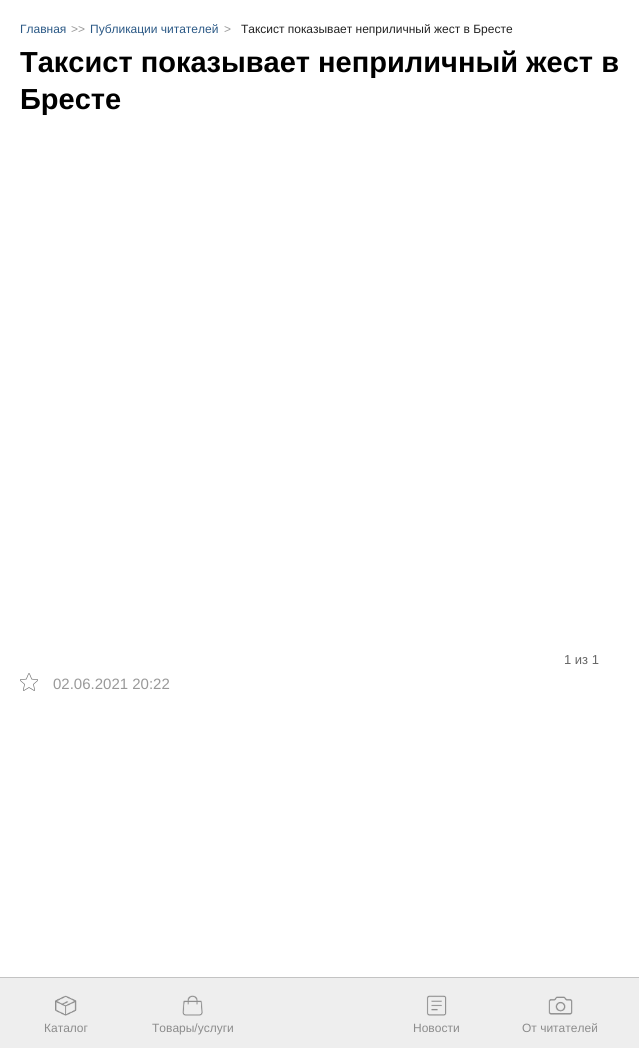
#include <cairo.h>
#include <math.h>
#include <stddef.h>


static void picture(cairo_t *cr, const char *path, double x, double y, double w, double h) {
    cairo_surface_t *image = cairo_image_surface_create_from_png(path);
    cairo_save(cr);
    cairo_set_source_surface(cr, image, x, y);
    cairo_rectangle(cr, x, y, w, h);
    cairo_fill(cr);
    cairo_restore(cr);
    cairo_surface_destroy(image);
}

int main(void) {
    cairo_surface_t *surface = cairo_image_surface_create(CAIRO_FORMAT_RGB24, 639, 1048);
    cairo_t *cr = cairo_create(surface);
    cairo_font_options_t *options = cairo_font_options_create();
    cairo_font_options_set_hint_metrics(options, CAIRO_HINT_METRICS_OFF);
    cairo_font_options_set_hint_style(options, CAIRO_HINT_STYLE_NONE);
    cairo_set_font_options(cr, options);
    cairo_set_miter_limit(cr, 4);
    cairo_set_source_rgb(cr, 1, 1, 1);
    cairo_paint(cr);
    cairo_select_font_face(cr, "Liberation Sans", CAIRO_FONT_SLANT_NORMAL, CAIRO_FONT_WEIGHT_NORMAL);
    cairo_set_font_size(cr, 12);
    cairo_set_source_rgb(cr, 0.165, 0.345, 0.522);
    cairo_move_to(cr, 20, 33);
    cairo_show_text(cr, "Главная");
    cairo_set_source_rgb(cr, 0.6, 0.6, 0.6);
    cairo_move_to(cr, 71, 33);
    cairo_show_text(cr, ">>");
    cairo_set_source_rgb(cr, 0.165, 0.345, 0.522);
    cairo_move_to(cr, 90, 33);
    cairo_show_text(cr, "Публикации читателей");
    cairo_set_source_rgb(cr, 0.6, 0.6, 0.6);
    cairo_move_to(cr, 224, 33);
    cairo_show_text(cr, ">");
    cairo_set_source_rgb(cr, 0.133, 0.133, 0.133);
    cairo_move_to(cr, 241, 33);
    cairo_show_text(cr, "Таксист показывает неприличный жест в Бресте");
    cairo_select_font_face(cr, "Liberation Sans", CAIRO_FONT_SLANT_NORMAL, CAIRO_FONT_WEIGHT_BOLD);
    cairo_set_font_size(cr, 29);
    cairo_set_source_rgb(cr, 0, 0, 0);
    cairo_move_to(cr, 20, 72);
    cairo_show_text(cr, "Таксист показывает неприличный жест в");
    cairo_move_to(cr, 20, 109);
    cairo_show_text(cr, "Бресте");
    cairo_select_font_face(cr, "Liberation Sans", CAIRO_FONT_SLANT_NORMAL, CAIRO_FONT_WEIGHT_NORMAL);
    cairo_set_font_size(cr, 13);
    cairo_set_source_rgb(cr, 0.4, 0.4, 0.4);
    cairo_move_to(cr, 564, 664);
    cairo_show_text(cr, "1 из 1");
    picture(cr, "img1.png", 20, 673, 18, 18);
    cairo_set_font_size(cr, 15);
    cairo_set_source_rgb(cr, 0.6, 0.6, 0.6);
    cairo_move_to(cr, 53, 689);
    cairo_show_text(cr, "02.06.2021 20:22");
    cairo_set_source_rgb(cr, 0.933, 0.933, 0.933);
    cairo_rectangle(cr, 0, 978, 639, 70);
    cairo_fill(cr);
    cairo_set_source_rgb(cr, 0.765, 0.765, 0.765);
    cairo_rectangle(cr, 0, 977, 639, 1);
    cairo_fill(cr);
    picture(cr, "img2.png", 55, 995, 22, 21);
    cairo_set_font_size(cr, 12);
    cairo_set_source_rgb(cr, 0.549, 0.549, 0.549);
    cairo_move_to(cr, 44, 1032);
    cairo_show_text(cr, "Каталог");
    picture(cr, "img3.png", 182, 995, 21, 21);
    cairo_move_to(cr, 152, 1032);
    cairo_show_text(cr, "Товары/услуги");
    picture(cr, "img4.png", 426, 995, 21, 21);
    cairo_move_to(cr, 413, 1032);
    cairo_show_text(cr, "Новости");
    picture(cr, "img5.png", 548, 996, 25, 19);
    cairo_move_to(cr, 522, 1032);
    cairo_show_text(cr, "От читателей");
    cairo_surface_write_to_png(surface, "page.png");
    cairo_font_options_destroy(options);
    cairo_destroy(cr);
    cairo_surface_destroy(surface);
    return 0;
}
